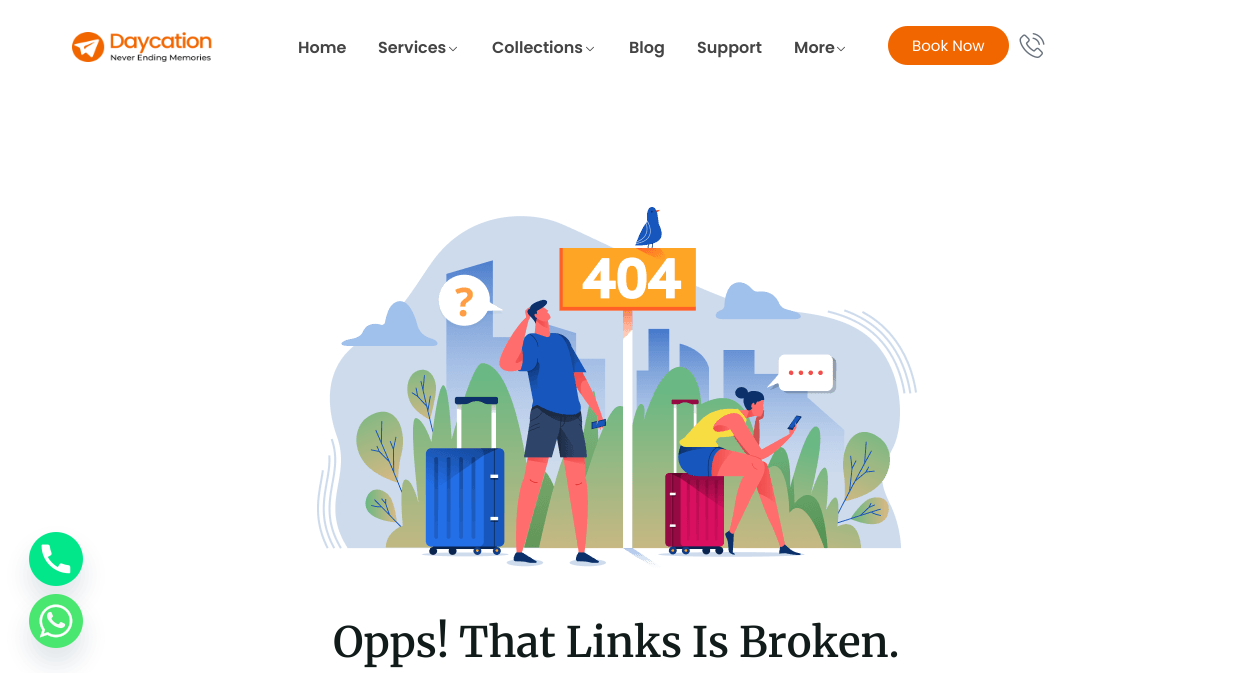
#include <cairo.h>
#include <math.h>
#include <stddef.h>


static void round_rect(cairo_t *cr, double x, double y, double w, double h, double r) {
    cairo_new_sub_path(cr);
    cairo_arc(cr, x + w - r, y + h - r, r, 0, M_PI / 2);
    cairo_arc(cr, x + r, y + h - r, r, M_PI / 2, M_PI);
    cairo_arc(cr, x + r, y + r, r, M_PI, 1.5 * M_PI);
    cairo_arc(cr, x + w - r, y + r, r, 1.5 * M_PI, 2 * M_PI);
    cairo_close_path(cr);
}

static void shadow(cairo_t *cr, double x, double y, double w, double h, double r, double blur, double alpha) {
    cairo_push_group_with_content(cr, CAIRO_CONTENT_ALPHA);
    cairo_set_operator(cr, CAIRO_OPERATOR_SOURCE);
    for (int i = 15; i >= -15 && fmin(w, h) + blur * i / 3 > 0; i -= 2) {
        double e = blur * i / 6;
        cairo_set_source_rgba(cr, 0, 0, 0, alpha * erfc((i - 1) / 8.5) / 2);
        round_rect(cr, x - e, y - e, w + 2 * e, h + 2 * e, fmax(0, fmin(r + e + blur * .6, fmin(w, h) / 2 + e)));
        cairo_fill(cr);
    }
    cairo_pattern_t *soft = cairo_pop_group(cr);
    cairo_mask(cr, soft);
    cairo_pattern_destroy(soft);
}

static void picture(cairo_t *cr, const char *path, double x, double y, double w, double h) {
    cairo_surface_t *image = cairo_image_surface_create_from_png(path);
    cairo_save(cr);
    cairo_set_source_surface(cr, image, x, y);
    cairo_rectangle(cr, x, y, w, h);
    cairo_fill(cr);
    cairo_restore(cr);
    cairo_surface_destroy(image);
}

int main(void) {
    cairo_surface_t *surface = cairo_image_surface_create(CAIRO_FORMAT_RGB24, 1233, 673);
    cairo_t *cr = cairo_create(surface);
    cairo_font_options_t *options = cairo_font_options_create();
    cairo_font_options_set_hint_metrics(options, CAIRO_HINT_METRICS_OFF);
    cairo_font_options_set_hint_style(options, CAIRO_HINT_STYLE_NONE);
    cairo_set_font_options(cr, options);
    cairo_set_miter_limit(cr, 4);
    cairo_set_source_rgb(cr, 1, 1, 1);
    cairo_paint(cr);
    cairo_set_source_rgb(cr, 0.286, 0.408, 0.494);
    shadow(cr, 29, 548, 54, 54, 27, 12, 0.16);
    picture(cr, "img1.png", 29, 532, 54, 54);
    shadow(cr, 29, 610, 54, 54, 27, 12, 0.16);
    picture(cr, "img2.png", 29, 594, 54, 54);
    picture(cr, "img3.png", 72, 32, 140, 30);
    cairo_select_font_face(cr, "Poppins SemiBold", CAIRO_FONT_SLANT_NORMAL, CAIRO_FONT_WEIGHT_NORMAL);
    cairo_set_font_size(cr, 16);
    cairo_set_source_rgb(cr, 0.267, 0.267, 0.267);
    cairo_move_to(cr, 298, 53);
    cairo_show_text(cr, "Home");
    cairo_move_to(cr, 378, 53);
    cairo_show_text(cr, "Services");
    picture(cr, "img4.png", 449, 46, 8, 6);
    cairo_move_to(cr, 492, 53);
    cairo_show_text(cr, "Collections");
    picture(cr, "img4.png", 586, 46, 8, 6);
    cairo_move_to(cr, 629, 53);
    cairo_show_text(cr, "Blog");
    cairo_move_to(cr, 697, 53);
    cairo_show_text(cr, "Support");
    cairo_move_to(cr, 794, 53);
    cairo_show_text(cr, "More");
    picture(cr, "img4.png", 837, 46, 8, 6);
    cairo_set_source_rgb(cr, 0.949, 0.4, 0);
    round_rect(cr, 888, 26, 121, 39, 19.5);
    cairo_fill(cr);
    cairo_select_font_face(cr, "Poppins", CAIRO_FONT_SLANT_NORMAL, CAIRO_FONT_WEIGHT_NORMAL);
    cairo_set_font_size(cr, 15);
    cairo_set_source_rgb(cr, 1, 1, 1);
    cairo_move_to(cr, 912, 51);
    cairo_show_text(cr, "Book Now");
    picture(cr, "img5.png", 1019, 33, 26, 25);
    picture(cr, "img6.png", 317, 207, 600, 361);
    cairo_select_font_face(cr, "Merriweather SemiBold", CAIRO_FONT_SLANT_NORMAL, CAIRO_FONT_WEIGHT_NORMAL);
    cairo_set_font_size(cr, 42);
    cairo_set_source_rgb(cr, 0.067, 0.106, 0.098);
    cairo_move_to(cr, 333, 657);
    cairo_show_text(cr, "Opps! That Links Is Broken.");
    cairo_surface_write_to_png(surface, "page.png");
    cairo_font_options_destroy(options);
    cairo_destroy(cr);
    cairo_surface_destroy(surface);
    return 0;
}
